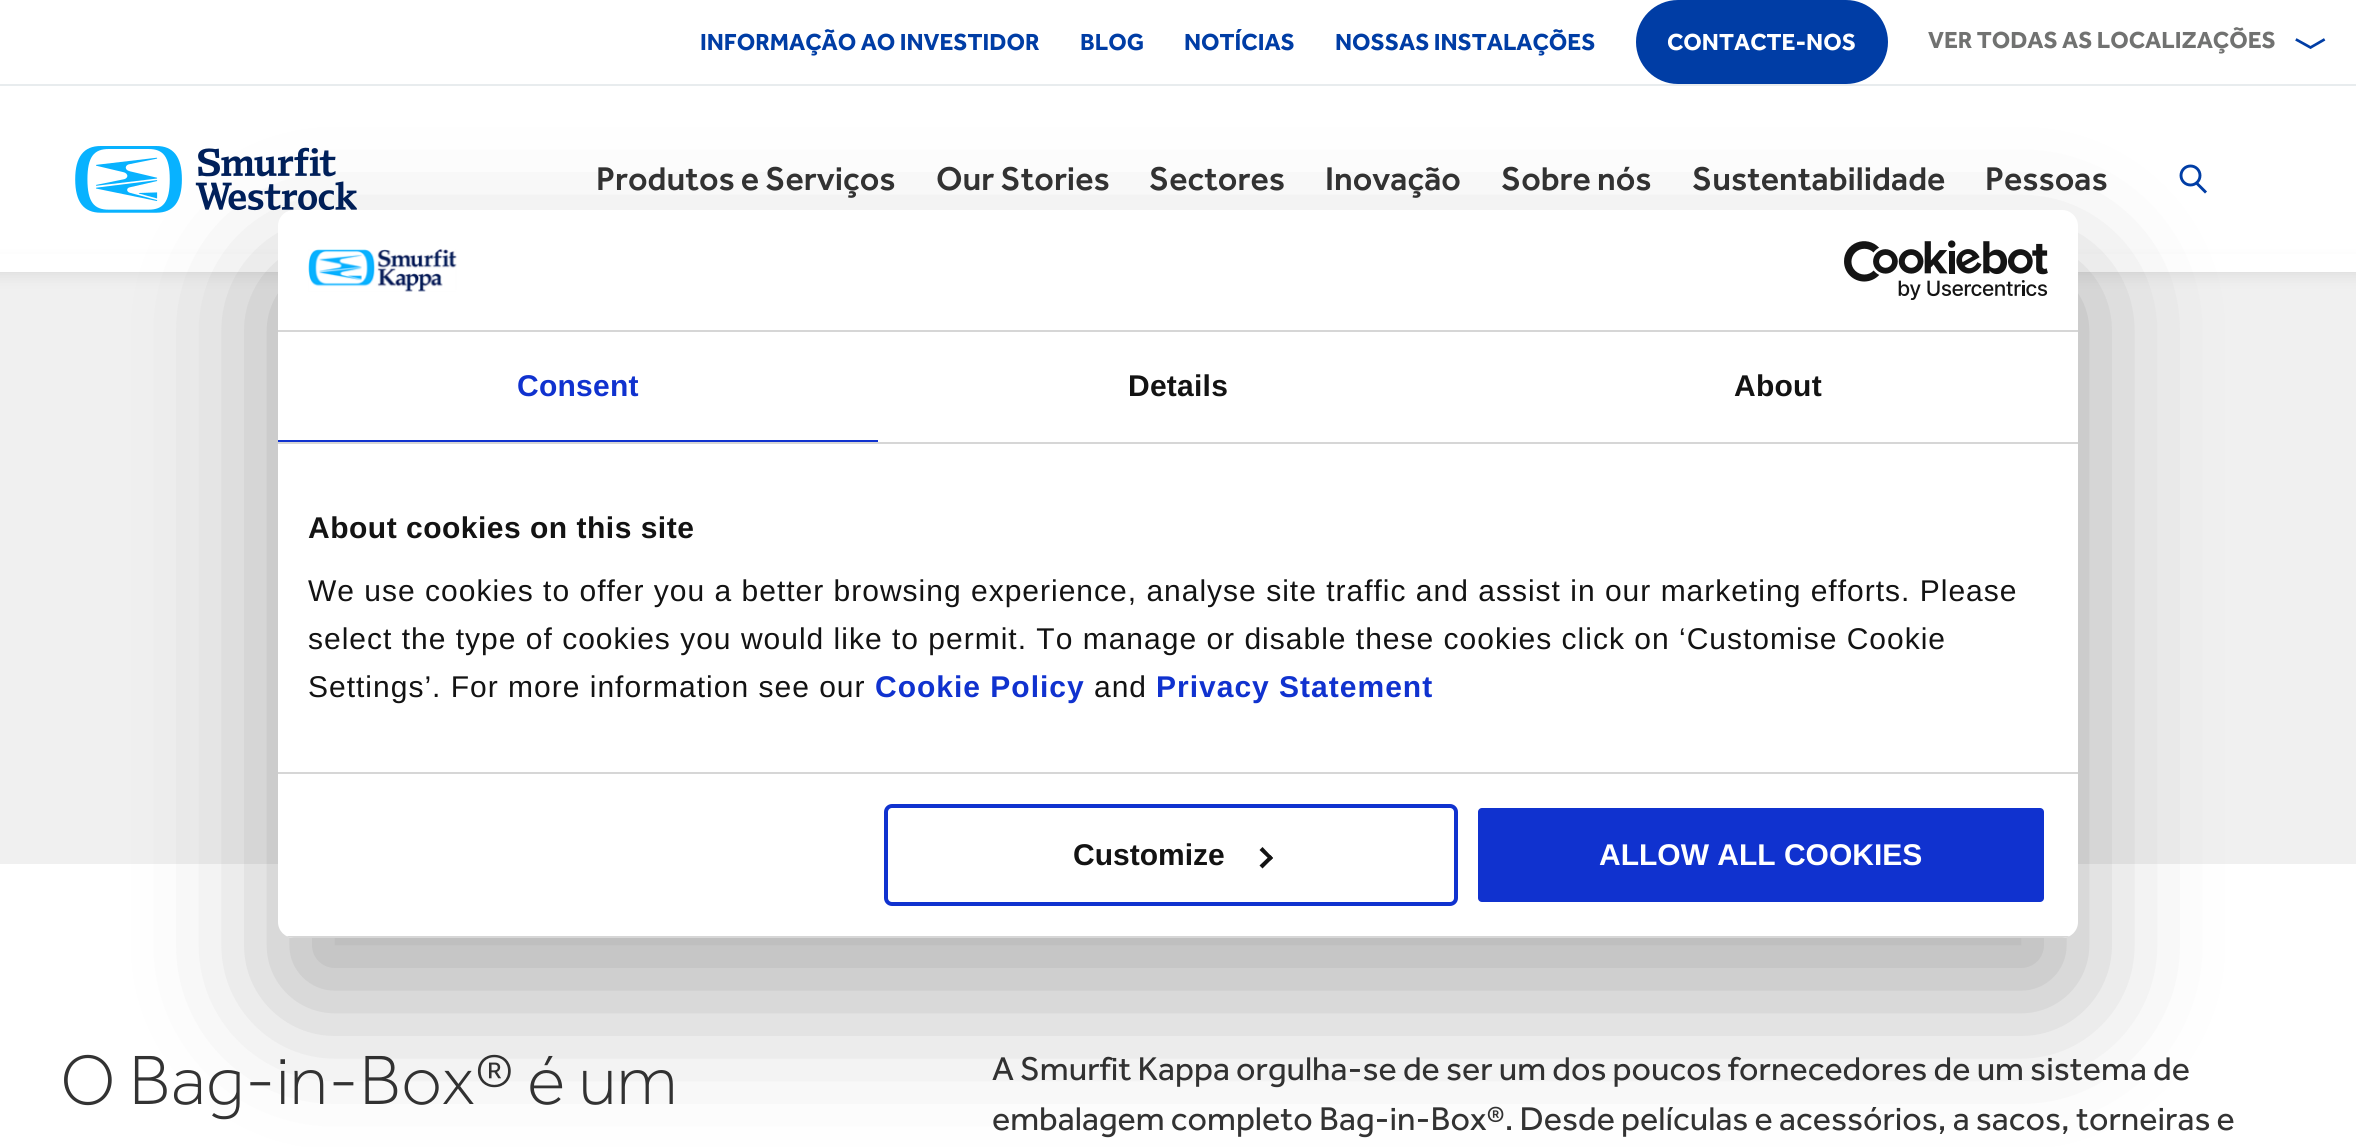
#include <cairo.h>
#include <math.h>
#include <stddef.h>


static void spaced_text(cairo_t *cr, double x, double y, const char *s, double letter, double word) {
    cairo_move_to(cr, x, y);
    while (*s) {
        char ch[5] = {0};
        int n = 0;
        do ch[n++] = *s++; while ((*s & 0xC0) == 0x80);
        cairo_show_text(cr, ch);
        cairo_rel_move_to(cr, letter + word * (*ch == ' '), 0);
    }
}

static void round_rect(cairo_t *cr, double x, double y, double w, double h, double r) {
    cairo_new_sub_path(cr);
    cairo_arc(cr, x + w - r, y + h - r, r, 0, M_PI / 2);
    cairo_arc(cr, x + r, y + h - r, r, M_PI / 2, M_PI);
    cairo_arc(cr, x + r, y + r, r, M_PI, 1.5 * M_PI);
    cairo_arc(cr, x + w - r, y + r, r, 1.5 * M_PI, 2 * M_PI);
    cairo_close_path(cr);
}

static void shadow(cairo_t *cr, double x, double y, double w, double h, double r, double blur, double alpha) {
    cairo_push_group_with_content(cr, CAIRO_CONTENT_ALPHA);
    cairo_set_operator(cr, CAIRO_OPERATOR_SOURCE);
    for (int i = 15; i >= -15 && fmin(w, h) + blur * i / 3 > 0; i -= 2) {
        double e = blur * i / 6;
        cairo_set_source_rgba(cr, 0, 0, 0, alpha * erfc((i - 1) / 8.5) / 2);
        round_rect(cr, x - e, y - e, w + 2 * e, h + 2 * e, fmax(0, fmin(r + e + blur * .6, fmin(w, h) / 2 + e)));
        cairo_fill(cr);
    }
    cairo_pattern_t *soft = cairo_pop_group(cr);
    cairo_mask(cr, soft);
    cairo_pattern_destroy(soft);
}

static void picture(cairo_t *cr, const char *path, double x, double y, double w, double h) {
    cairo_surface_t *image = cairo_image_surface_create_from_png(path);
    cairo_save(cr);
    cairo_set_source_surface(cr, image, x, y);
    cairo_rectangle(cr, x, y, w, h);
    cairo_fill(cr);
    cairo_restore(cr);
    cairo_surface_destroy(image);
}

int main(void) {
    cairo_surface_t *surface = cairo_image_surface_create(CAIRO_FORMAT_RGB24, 2356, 1147);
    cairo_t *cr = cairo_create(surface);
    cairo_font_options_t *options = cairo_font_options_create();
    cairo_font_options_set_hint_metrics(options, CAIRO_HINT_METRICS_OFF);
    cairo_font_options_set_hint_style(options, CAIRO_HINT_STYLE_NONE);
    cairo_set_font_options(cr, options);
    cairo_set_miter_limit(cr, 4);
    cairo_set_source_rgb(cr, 1, 1, 1);
    cairo_paint(cr);
    cairo_set_source_rgb(cr, 0.941, 0.941, 0.941);
    cairo_rectangle(cr, 0, 272, 2356, 592);
    cairo_fill(cr);
    cairo_set_source_rgb(cr, 0, 0, 0);
    shadow(cr, -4, 264, 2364, 10, 0, 8, 0.1);
    cairo_set_source_rgb(cr, 1, 1, 1);
    cairo_rectangle(cr, 0, 254, 2356, 18);
    cairo_fill(cr);
    cairo_set_source_rgb(cr, 0.91, 0.922, 0.933);
    cairo_rectangle(cr, 0, 84, 2356, 2);
    cairo_fill(cr);
    cairo_select_font_face(cr, "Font", CAIRO_FONT_SLANT_NORMAL, CAIRO_FONT_WEIGHT_BOLD);
    cairo_set_font_size(cr, 24);
    cairo_set_source_rgb(cr, 0, 0.239, 0.647);
    cairo_move_to(cr, 700, 50);
    cairo_show_text(cr, "INFORMAÇÃO AO INVESTIDOR");
    cairo_move_to(cr, 1080, 50);
    cairo_show_text(cr, "BLOG");
    cairo_move_to(cr, 1184, 50);
    cairo_show_text(cr, "NOTÍCIAS");
    cairo_move_to(cr, 1335, 50);
    cairo_show_text(cr, "NOSSAS INSTALAÇÕES");
    round_rect(cr, 1637, 1, 250, 82, 41);
    cairo_fill_preserve(cr);
    cairo_stroke(cr);
    cairo_set_source_rgb(cr, 1, 1, 1);
    cairo_move_to(cr, 1667, 50);
    cairo_show_text(cr, "CONTACTE-NOS");
    cairo_set_source_rgb(cr, 0.443, 0.447, 0.443);
    cairo_move_to(cr, 1928, 48);
    cairo_show_text(cr, "VER TODAS AS LOCALIZAÇÕES");
    cairo_new_path(cr);
    cairo_move_to(cr, 2323.5, 40);
    cairo_line_to(cr, 2310.5, 47.5);
    cairo_line_to(cr, 2297, 40);
    cairo_set_source_rgb(cr, 0, 0.239, 0.647);
    cairo_set_line_width(cr, 2.7);
    cairo_set_line_cap(cr, CAIRO_LINE_CAP_SQUARE);
    cairo_stroke(cr);
    picture(cr, "img1.png", 75, 146, 282, 67);
    cairo_select_font_face(cr, "Font Medium", CAIRO_FONT_SLANT_NORMAL, CAIRO_FONT_WEIGHT_NORMAL);
    cairo_set_font_size(cr, 34);
    cairo_set_source_rgb(cr, 0.2, 0.2, 0.2);
    cairo_move_to(cr, 596, 190);
    cairo_show_text(cr, "Produtos e Serviços");
    cairo_move_to(cr, 936, 190);
    cairo_show_text(cr, "Our Stories");
    cairo_move_to(cr, 1149, 190);
    cairo_show_text(cr, "Sectores");
    cairo_move_to(cr, 1325, 190);
    cairo_show_text(cr, "Inovação");
    cairo_move_to(cr, 1501, 190);
    cairo_show_text(cr, "Sobre nós");
    cairo_move_to(cr, 1692, 190);
    cairo_show_text(cr, "Sustentabilidade");
    cairo_move_to(cr, 1985, 190);
    cairo_show_text(cr, "Pessoas");
    cairo_new_path(cr);
    cairo_arc(cr, 2190.5, 175.5, 9.5, 0, 2 * M_PI);
    cairo_set_source_rgb(cr, 0, 0.239, 0.647);
    cairo_set_line_width(cr, 2.9);
    cairo_set_line_cap(cr, CAIRO_LINE_CAP_BUTT);
    cairo_stroke(cr);
    cairo_new_path(cr);
    cairo_move_to(cr, 2197, 183.5);
    cairo_line_to(cr, 2205, 191.5);
    cairo_set_line_cap(cr, CAIRO_LINE_CAP_SQUARE);
    cairo_stroke(cr);
    cairo_select_font_face(cr, "Font Light", CAIRO_FONT_SLANT_NORMAL, CAIRO_FONT_WEIGHT_NORMAL);
    cairo_set_font_size(cr, 72);
    cairo_set_source_rgb(cr, 0.2, 0.2, 0.2);
    cairo_move_to(cr, 60, 1104);
    cairo_show_text(cr, "O Bag-in-Box® é um");
    cairo_select_font_face(cr, "Font", CAIRO_FONT_SLANT_NORMAL, CAIRO_FONT_WEIGHT_NORMAL);
    cairo_set_font_size(cr, 34);
    cairo_move_to(cr, 992, 1080);
    cairo_show_text(cr, "A Smurfit Kappa orgulha-se de ser um dos poucos fornecedores de um sistema de");
    cairo_move_to(cr, 992, 1130);
    cairo_show_text(cr, "embalagem completo Bag-in-Box®. Desde películas e acessórios, a sacos, torneiras e");
    cairo_set_source_rgb(cr, 0, 0, 0);
    shadow(cr, 278, 274, 1800, 728, 16, 68, 0.3);
    cairo_set_source_rgb(cr, 1, 1, 1);
    round_rect(cr, 278, 210, 1800, 728, 16);
    cairo_fill(cr);
    cairo_set_source_rgb(cr, 0.839, 0.839, 0.839);
    cairo_rectangle(cr, 278, 330, 1800, 2);
    cairo_fill(cr);
    picture(cr, "img2.png", 308, 249, 149, 43);
    picture(cr, "img3.png", 1844, 240, 204, 60);
    cairo_rectangle(cr, 278, 442, 1800, 2);
    cairo_fill(cr);
    cairo_set_source_rgb(cr, 0.063, 0.196, 0.812);
    cairo_rectangle(cr, 278, 440, 600, 2);
    cairo_fill(cr);
    cairo_select_font_face(cr, "Liberation Sans", CAIRO_FONT_SLANT_NORMAL, CAIRO_FONT_WEIGHT_BOLD);
    cairo_set_font_size(cr, 30);
    spaced_text(cr, 517, 396, "Consent", 0.25, 0);
    cairo_set_source_rgb(cr, 0.078, 0.078, 0.078);
    spaced_text(cr, 1128, 396, "Details", 0.25, 0);
    spaced_text(cr, 1734, 396, "About", 0.25, 0);
    cairo_set_source_rgb(cr, 0.839, 0.839, 0.839);
    cairo_rectangle(cr, 278, 772, 1800, 2);
    cairo_fill(cr);
    cairo_set_source_rgb(cr, 0.078, 0.078, 0.078);
    spaced_text(cr, 308, 538, "About cookies on this site", 0.5, 0);
    cairo_select_font_face(cr, "Liberation Sans", CAIRO_FONT_SLANT_NORMAL, CAIRO_FONT_WEIGHT_NORMAL);
    spaced_text(cr, 308, 601, "We use cookies to offer you a better browsing experience, analyse site traffic and assist in our marketing efforts. Please", 1, 0);
    spaced_text(cr, 308, 649, "select the type of cookies you would like to permit. To manage or disable these cookies click on ‘Customise Cookie", 1, 0);
    spaced_text(cr, 308, 697, "Settings’. For more information see our", 1, 0);
    cairo_select_font_face(cr, "Liberation Sans", CAIRO_FONT_SLANT_NORMAL, CAIRO_FONT_WEIGHT_BOLD);
    cairo_set_source_rgb(cr, 0.063, 0.196, 0.812);
    spaced_text(cr, 875, 697, "Cookie Policy", 1, 0);
    cairo_select_font_face(cr, "Liberation Sans", CAIRO_FONT_SLANT_NORMAL, CAIRO_FONT_WEIGHT_NORMAL);
    cairo_set_source_rgb(cr, 0.078, 0.078, 0.078);
    spaced_text(cr, 1094, 697, "and", 1, 0);
    cairo_select_font_face(cr, "Liberation Sans", CAIRO_FONT_SLANT_NORMAL, CAIRO_FONT_WEIGHT_BOLD);
    cairo_set_source_rgb(cr, 0.063, 0.196, 0.812);
    spaced_text(cr, 1156, 697, "Privacy Statement", 1, 0);
    cairo_save(cr);
    round_rect(cr, 278, 210, 1800, 728, 16);
    cairo_clip(cr);
    cairo_set_source_rgb(cr, 0.839, 0.839, 0.839);
    cairo_rectangle(cr, 278, 936, 1800, 2);
    cairo_fill(cr);
    cairo_restore(cr);
    round_rect(cr, 886, 806, 570, 98, 6);
    cairo_set_line_width(cr, 4);
    cairo_set_line_cap(cr, CAIRO_LINE_CAP_BUTT);
    cairo_stroke(cr);
    cairo_set_source_rgb(cr, 0.078, 0.078, 0.078);
    cairo_move_to(cr, 1073, 865);
    cairo_show_text(cr, "Customize");
    cairo_new_path(cr);
    cairo_move_to(cr, 1262.5, 847);
    cairo_line_to(cr, 1273, 858);
    cairo_line_to(cr, 1270.5, 860.5);
    cairo_line_to(cr, 1259.5, 850);
    cairo_close_path(cr);
    cairo_fill(cr);
    cairo_new_path(cr);
    cairo_move_to(cr, 1270.5, 855);
    cairo_line_to(cr, 1273, 858);
    cairo_line_to(cr, 1262.5, 868.5);
    cairo_line_to(cr, 1259.5, 865.5);
    cairo_close_path(cr);
    cairo_fill(cr);
    cairo_set_source_rgb(cr, 0.063, 0.196, 0.812);
    round_rect(cr, 1476, 806, 570, 98, 6);
    cairo_fill_preserve(cr);
    cairo_set_source_rgb(cr, 1, 1, 1);
    cairo_stroke(cr);
    cairo_move_to(cr, 1599, 865);
    cairo_show_text(cr, "ALLOW ALL COOKIES");
    cairo_surface_write_to_png(surface, "page.png");
    cairo_font_options_destroy(options);
    cairo_destroy(cr);
    cairo_surface_destroy(surface);
    return 0;
}
